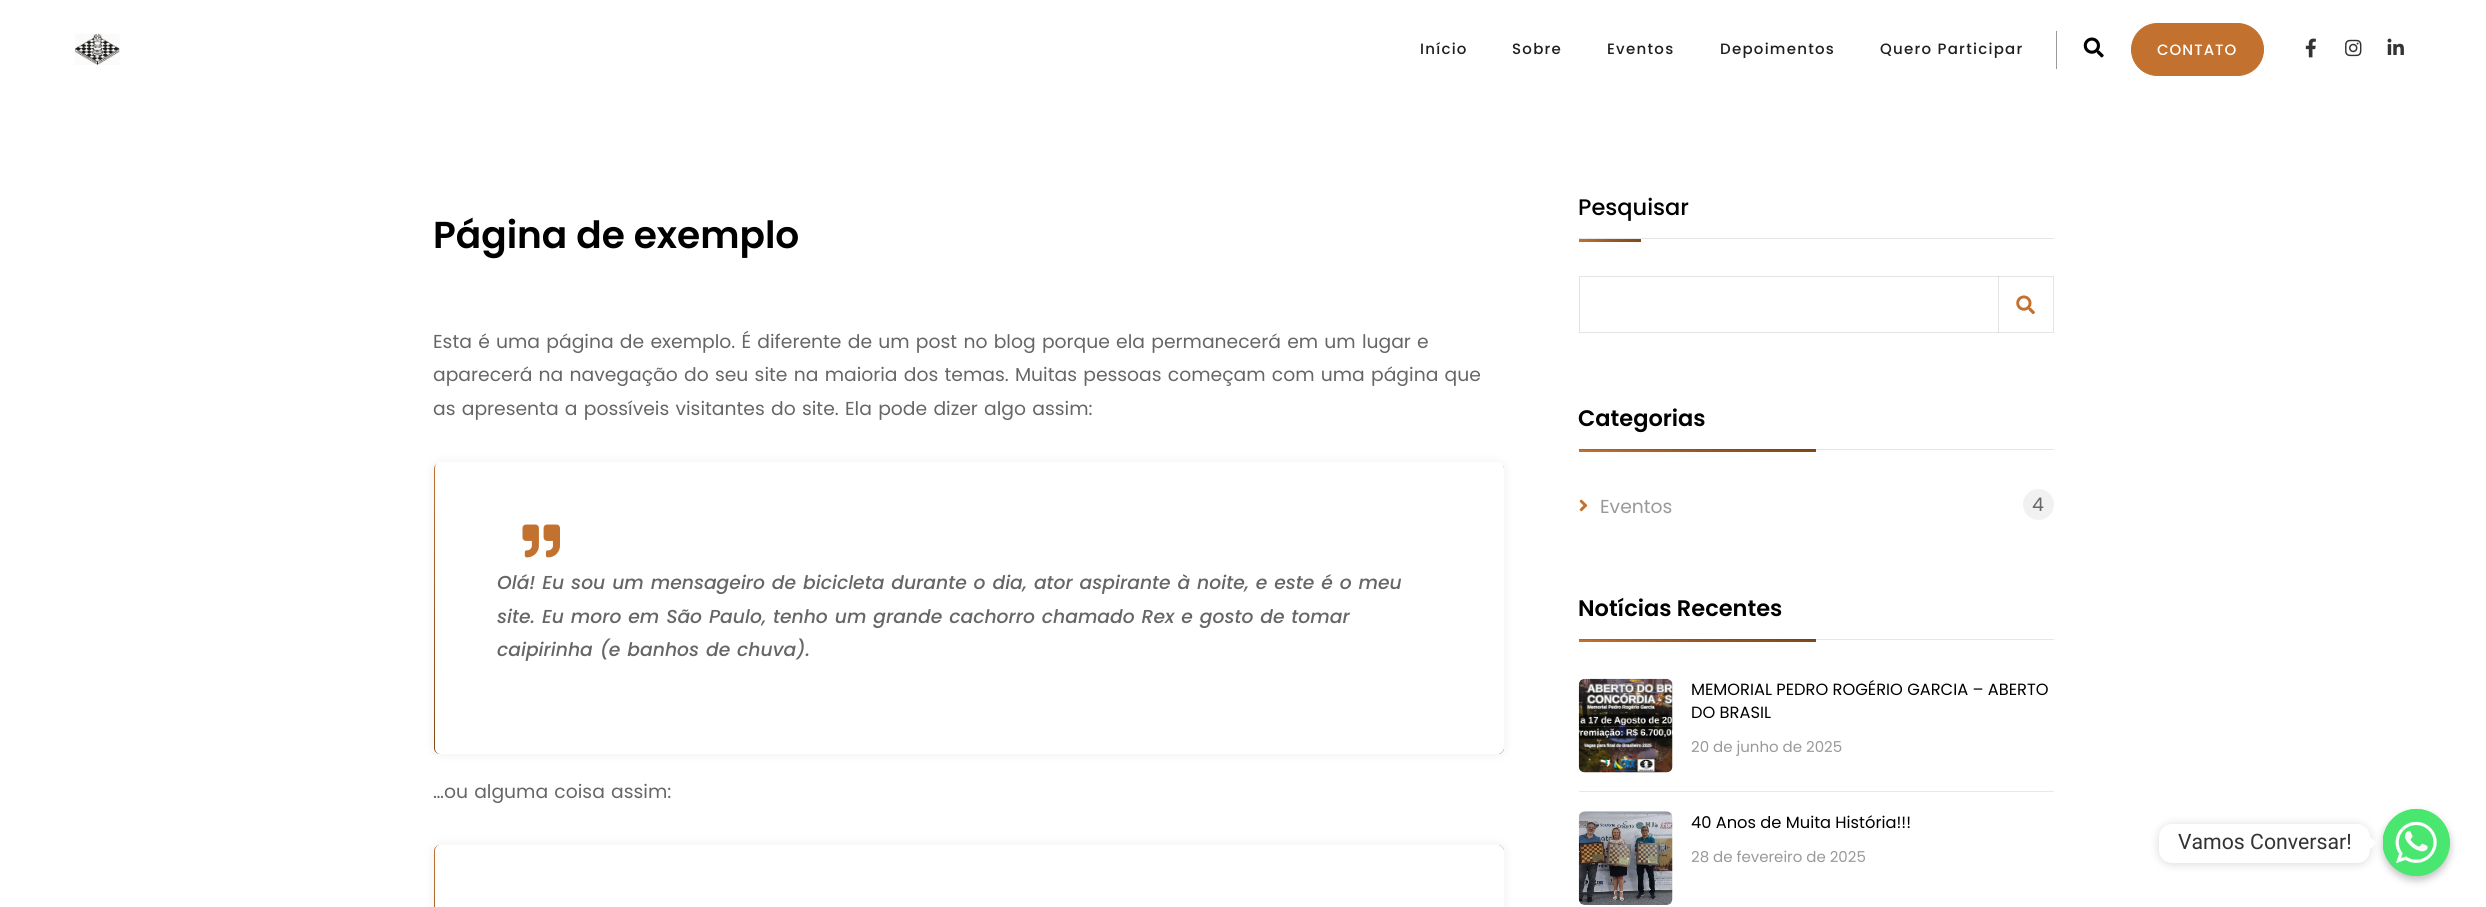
#include <cairo.h>
#include <math.h>
#include <stddef.h>


static void spaced_text(cairo_t *cr, double x, double y, const char *s, double letter, double word) {
    cairo_move_to(cr, x, y);
    while (*s) {
        char ch[5] = {0};
        int n = 0;
        do ch[n++] = *s++; while ((*s & 0xC0) == 0x80);
        cairo_show_text(cr, ch);
        cairo_rel_move_to(cr, letter + word * (*ch == ' '), 0);
    }
}

static void round_rect(cairo_t *cr, double x, double y, double w, double h, double r) {
    cairo_new_sub_path(cr);
    cairo_arc(cr, x + w - r, y + h - r, r, 0, M_PI / 2);
    cairo_arc(cr, x + r, y + h - r, r, M_PI / 2, M_PI);
    cairo_arc(cr, x + r, y + r, r, M_PI, 1.5 * M_PI);
    cairo_arc(cr, x + w - r, y + r, r, 1.5 * M_PI, 2 * M_PI);
    cairo_close_path(cr);
}

static void shadow(cairo_t *cr, double x, double y, double w, double h, double r, double blur, double alpha) {
    cairo_push_group_with_content(cr, CAIRO_CONTENT_ALPHA);
    cairo_set_operator(cr, CAIRO_OPERATOR_SOURCE);
    for (int i = 15; i >= -15 && fmin(w, h) + blur * i / 3 > 0; i -= 2) {
        double e = blur * i / 6;
        cairo_set_source_rgba(cr, 0, 0, 0, alpha * erfc((i - 1) / 8.5) / 2);
        round_rect(cr, x - e, y - e, w + 2 * e, h + 2 * e, fmax(0, fmin(r + e + blur * .6, fmin(w, h) / 2 + e)));
        cairo_fill(cr);
    }
    cairo_pattern_t *soft = cairo_pop_group(cr);
    cairo_mask(cr, soft);
    cairo_pattern_destroy(soft);
}

static void picture(cairo_t *cr, const char *path, double x, double y, double w, double h) {
    cairo_surface_t *image = cairo_image_surface_create_from_png(path);
    cairo_save(cr);
    cairo_set_source_surface(cr, image, x, y);
    cairo_rectangle(cr, x, y, w, h);
    cairo_fill(cr);
    cairo_restore(cr);
    cairo_surface_destroy(image);
}

int main(void) {
    cairo_surface_t *surface = cairo_image_surface_create(CAIRO_FORMAT_RGB24, 2486, 907);
    cairo_t *cr = cairo_create(surface);
    cairo_font_options_t *options = cairo_font_options_create();
    cairo_font_options_set_hint_metrics(options, CAIRO_HINT_METRICS_OFF);
    cairo_font_options_set_hint_style(options, CAIRO_HINT_STYLE_NONE);
    cairo_set_font_options(cr, options);
    cairo_set_miter_limit(cr, 4);
    cairo_pattern_t *gradient;
    cairo_set_source_rgb(cr, 1, 1, 1);
    cairo_paint(cr);
    cairo_set_source_rgb(cr, 0.902, 0.902, 0.902);
    cairo_rectangle(cr, 1816, 639, 238, 1);
    cairo_fill(cr);
    cairo_rectangle(cr, 1816, 449, 238, 1);
    cairo_fill(cr);
    picture(cr, "img1.png", 75, 33, 45, 32);
    cairo_select_font_face(cr, "Poppins Medium", CAIRO_FONT_SLANT_NORMAL, CAIRO_FONT_WEIGHT_NORMAL);
    cairo_set_font_size(cr, 15);
    cairo_set_source_rgb(cr, 0.122, 0.122, 0.122);
    spaced_text(cr, 1420, 54, "Início", 1.25, 0);
    spaced_text(cr, 1512, 54, "Sobre", 1.25, 0);
    spaced_text(cr, 1607, 54, "Eventos", 1.25, 0);
    spaced_text(cr, 1720, 54, "Depoimentos", 1.25, 0);
    spaced_text(cr, 1880, 54, "Quero Participar", 1.25, 0);
    cairo_set_source_rgb(cr, 0.6, 0.6, 0.6);
    cairo_rectangle(cr, 2056, 31, 1, 38);
    cairo_fill(cr);
    picture(cr, "img2.png", 2083, 37, 21, 21);
    cairo_set_source_rgb(cr, 0.761, 0.443, 0.184);
    round_rect(cr, 2131.5, 23.5, 132, 52, 26);
    cairo_fill_preserve(cr);
    cairo_set_line_width(cr, 1);
    cairo_stroke(cr);
    cairo_set_source_rgb(cr, 1, 1, 1);
    spaced_text(cr, 2157, 55, "CONTATO", 1, 0);
    picture(cr, "img3.png", 2305, 38, 11, 20);
    picture(cr, "img4.png", 2345, 39, 17, 18);
    picture(cr, "img5.png", 2387, 38, 17, 17);
    cairo_select_font_face(cr, "Poppins SemiBold", CAIRO_FONT_SLANT_NORMAL, CAIRO_FONT_WEIGHT_NORMAL);
    cairo_set_font_size(cr, 37.5);
    cairo_set_source_rgb(cr, 0, 0, 0);
    cairo_move_to(cr, 433, 248);
    cairo_show_text(cr, "Página de exemplo");
    cairo_select_font_face(cr, "Poppins", CAIRO_FONT_SLANT_NORMAL, CAIRO_FONT_WEIGHT_NORMAL);
    cairo_set_font_size(cr, 18.75);
    cairo_set_source_rgb(cr, 0.4, 0.4, 0.4);
    spaced_text(cr, 433, 348, "Esta é uma página de exemplo. É diferente de um post no blog porque ela permanecerá em um lugar e", 0, 1.25);
    spaced_text(cr, 433, 381, "aparecerá na navegação do seu site na maioria dos temas. Muitas pessoas começam com uma página que", 0, 1.25);
    spaced_text(cr, 433, 415, "as apresenta a possíveis visitantes do site. Ela pode dizer algo assim:", 0, 1.25);
    cairo_set_source_rgb(cr, 0, 0, 0);
    shadow(cr, 434, 463, 1070, 291, 6, 6, 0.07);
    gradient = cairo_pattern_create_linear(969, 462, 969, 754);
    cairo_pattern_add_color_stop_rgba(gradient, 0, 0.761, 0.443, 0.184, 1);
    cairo_pattern_add_color_stop_rgba(gradient, 0.5, 0.6, 0.349, 0.145, 1);
    cairo_pattern_add_color_stop_rgba(gradient, 1, 0.498, 0.29, 0.094, 1);
    cairo_set_source(cr, gradient);
    cairo_pattern_destroy(gradient);
    round_rect(cr, 434, 463, 1070, 291, 6);
    cairo_fill(cr);
    cairo_set_source_rgb(cr, 1, 1, 1);
    cairo_new_path(cr);
    cairo_move_to(cr, 440, 462);
    cairo_line_to(cr, 1498, 462);
    cairo_curve_to(cr, 1501, 462, 1504, 465, 1504, 469);
    cairo_line_to(cr, 1504, 748);
    cairo_curve_to(cr, 1504, 751, 1501, 754, 1498, 754);
    cairo_line_to(cr, 440, 754);
    cairo_curve_to(cr, 437, 754, 435, 751, 435, 748);
    cairo_line_to(cr, 435, 469);
    cairo_curve_to(cr, 435, 465, 437, 462, 440, 462);
    cairo_close_path(cr);
    cairo_fill(cr);
    picture(cr, "img6.png", 522, 524, 38, 34);
    cairo_select_font_face(cr, "Poppins Medium", CAIRO_FONT_SLANT_ITALIC, CAIRO_FONT_WEIGHT_NORMAL);
    cairo_set_source_rgb(cr, 0.4, 0.4, 0.4);
    spaced_text(cr, 497, 589, "Olá! Eu sou um mensageiro de bicicleta durante o dia, ator aspirante à noite, e este é o meu", 0, 1.25);
    spaced_text(cr, 497, 623, "site. Eu moro em São Paulo, tenho um grande cachorro chamado Rex e gosto de tomar", 0, 1.25);
    spaced_text(cr, 497, 656, "caipirinha (e banhos de chuva).", 0, 1.25);
    cairo_select_font_face(cr, "Poppins", CAIRO_FONT_SLANT_NORMAL, CAIRO_FONT_WEIGHT_NORMAL);
    spaced_text(cr, 433, 798, "…ou alguma coisa assim:", 0, 1.25);
    cairo_set_source_rgb(cr, 0, 0, 0);
    shadow(cr, 434, 845, 1070, 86, 6, 6, 0.07);
    gradient = cairo_pattern_create_linear(969, 845, 969, 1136);
    cairo_pattern_add_color_stop_rgba(gradient, 0, 0.761, 0.443, 0.184, 1);
    cairo_pattern_add_color_stop_rgba(gradient, 0.5, 0.6, 0.349, 0.145, 1);
    cairo_pattern_add_color_stop_rgba(gradient, 1, 0.498, 0.29, 0.094, 1);
    cairo_set_source(cr, gradient);
    cairo_pattern_destroy(gradient);
    round_rect(cr, 434, 845, 1070, 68, 6);
    cairo_fill(cr);
    cairo_set_source_rgb(cr, 1, 1, 1);
    cairo_new_path(cr);
    cairo_move_to(cr, 440, 845);
    cairo_line_to(cr, 1498, 845);
    cairo_curve_to(cr, 1501, 845, 1504, 848, 1504, 851);
    cairo_line_to(cr, 1504, 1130);
    cairo_curve_to(cr, 1504, 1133, 1501, 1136, 1498, 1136);
    cairo_line_to(cr, 440, 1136);
    cairo_curve_to(cr, 437, 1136, 435, 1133, 435, 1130);
    cairo_line_to(cr, 435, 851);
    cairo_curve_to(cr, 435, 848, 437, 845, 440, 845);
    cairo_close_path(cr);
    cairo_fill(cr);
    cairo_set_source_rgb(cr, 0.902, 0.902, 0.902);
    cairo_rectangle(cr, 1579, 238, 475, 1);
    cairo_fill(cr);
    cairo_select_font_face(cr, "Poppins Medium", CAIRO_FONT_SLANT_NORMAL, CAIRO_FONT_WEIGHT_NORMAL);
    cairo_set_font_size(cr, 22.5);
    cairo_set_source_rgb(cr, 0, 0, 0);
    cairo_move_to(cr, 1578, 215);
    cairo_show_text(cr, "Pesquisar");
    gradient = cairo_pattern_create_linear(1579, 240, 1641, 240);
    cairo_pattern_add_color_stop_rgba(gradient, 0, 0.761, 0.443, 0.184, 1);
    cairo_pattern_add_color_stop_rgba(gradient, 0.5, 0.6, 0.349, 0.145, 1);
    cairo_pattern_add_color_stop_rgba(gradient, 1, 0.498, 0.29, 0.094, 1);
    cairo_set_source(cr, gradient);
    cairo_pattern_destroy(gradient);
    cairo_rectangle(cr, 1579, 239, 62, 3);
    cairo_fill(cr);
    cairo_rectangle(cr, 1579.5, 276.5, 474, 56);
    cairo_set_source_rgb(cr, 0.894, 0.894, 0.894);
    cairo_stroke(cr);
    cairo_set_source_rgba(cr, 0, 0, 0, 0.1);
    cairo_rectangle(cr, 1998, 276, 1, 57);
    cairo_fill(cr);
    picture(cr, "img7.png", 2016, 295, 19, 20);
    cairo_select_font_face(cr, "Poppins SemiBold", CAIRO_FONT_SLANT_NORMAL, CAIRO_FONT_WEIGHT_NORMAL);
    cairo_set_source_rgb(cr, 0, 0, 0);
    cairo_move_to(cr, 1578, 426);
    cairo_show_text(cr, "Categorias");
    gradient = cairo_pattern_create_linear(1579, 450, 1816, 450);
    cairo_pattern_add_color_stop_rgba(gradient, 0, 0.761, 0.443, 0.184, 1);
    cairo_pattern_add_color_stop_rgba(gradient, 0.5, 0.6, 0.349, 0.145, 1);
    cairo_pattern_add_color_stop_rgba(gradient, 1, 0.498, 0.29, 0.094, 1);
    cairo_set_source(cr, gradient);
    cairo_pattern_destroy(gradient);
    cairo_rectangle(cr, 1579, 450, 237, 2);
    cairo_fill(cr);
    gradient = cairo_pattern_create_linear(1579, 450, 1816, 450);
    cairo_pattern_add_color_stop_rgba(gradient, 0, 0.686, 0.4, 0.165, 1);
    cairo_pattern_add_color_stop_rgba(gradient, 0.5, 0.541, 0.314, 0.129, 1);
    cairo_pattern_add_color_stop_rgba(gradient, 1, 0.447, 0.263, 0.086, 1);
    cairo_set_source(cr, gradient);
    cairo_pattern_destroy(gradient);
    cairo_rectangle(cr, 1579, 449, 237, 1);
    cairo_fill(cr);
    picture(cr, "img8.png", 1579, 499, 9, 13);
    cairo_select_font_face(cr, "Poppins", CAIRO_FONT_SLANT_NORMAL, CAIRO_FONT_WEIGHT_NORMAL);
    cairo_set_font_size(cr, 18.75);
    cairo_set_source_rgb(cr, 0.6, 0.6, 0.6);
    cairo_move_to(cr, 1600, 513);
    cairo_show_text(cr, "Eventos");
    cairo_set_source_rgb(cr, 0.945, 0.945, 0.945);
    cairo_new_path(cr);
    cairo_arc(cr, 2038.5, 504.5, 15.5, 0, 2 * M_PI);
    cairo_fill(cr);
    cairo_set_source_rgb(cr, 0.4, 0.4, 0.4);
    cairo_move_to(cr, 2032, 511);
    cairo_show_text(cr, "4");
    cairo_select_font_face(cr, "Poppins SemiBold", CAIRO_FONT_SLANT_NORMAL, CAIRO_FONT_WEIGHT_NORMAL);
    cairo_set_font_size(cr, 22.5);
    cairo_set_source_rgb(cr, 0, 0, 0);
    cairo_move_to(cr, 1578, 616);
    cairo_show_text(cr, "Notícias Recentes");
    gradient = cairo_pattern_create_linear(1579, 640, 1816, 640);
    cairo_pattern_add_color_stop_rgba(gradient, 0, 0.761, 0.443, 0.184, 1);
    cairo_pattern_add_color_stop_rgba(gradient, 0.5, 0.6, 0.349, 0.145, 1);
    cairo_pattern_add_color_stop_rgba(gradient, 1, 0.498, 0.29, 0.094, 1);
    cairo_set_source(cr, gradient);
    cairo_pattern_destroy(gradient);
    cairo_rectangle(cr, 1579, 640, 237, 2);
    cairo_fill(cr);
    gradient = cairo_pattern_create_linear(1579, 640, 1816, 640);
    cairo_pattern_add_color_stop_rgba(gradient, 0, 0.686, 0.4, 0.165, 1);
    cairo_pattern_add_color_stop_rgba(gradient, 0.5, 0.541, 0.314, 0.129, 1);
    cairo_pattern_add_color_stop_rgba(gradient, 1, 0.447, 0.263, 0.086, 1);
    cairo_set_source(cr, gradient);
    cairo_pattern_destroy(gradient);
    cairo_rectangle(cr, 1579, 639, 237, 1);
    cairo_fill(cr);
    cairo_set_source_rgb(cr, 0.91, 0.91, 0.91);
    cairo_rectangle(cr, 1579, 791, 475, 1);
    cairo_fill(cr);
    picture(cr, "img9.png", 1578, 678, 95, 95);
    cairo_select_font_face(cr, "Poppins", CAIRO_FONT_SLANT_NORMAL, CAIRO_FONT_WEIGHT_NORMAL);
    cairo_set_font_size(cr, 16.25);
    cairo_set_source_rgb(cr, 0, 0, 0);
    cairo_move_to(cr, 1691, 695);
    cairo_show_text(cr, "MEMORIAL PEDRO ROGÉRIO GARCIA – ABERTO");
    cairo_move_to(cr, 1691, 718);
    cairo_show_text(cr, "DO BRASIL");
    cairo_set_font_size(cr, 15);
    cairo_set_source_rgb(cr, 0.6, 0.6, 0.6);
    cairo_move_to(cr, 1691, 752);
    cairo_show_text(cr, "20 de junho de 2025");
    picture(cr, "img10.png", 1578, 811, 95, 94);
    cairo_set_font_size(cr, 16.25);
    cairo_set_source_rgb(cr, 0, 0, 0);
    cairo_move_to(cr, 1691, 828);
    cairo_show_text(cr, "40 Anos de Muita História!!!");
    cairo_set_font_size(cr, 15);
    cairo_set_source_rgb(cr, 0.6, 0.6, 0.6);
    cairo_move_to(cr, 1691, 862);
    cairo_show_text(cr, "28 de fevereiro de 2025");
    cairo_set_source_rgb(cr, 0, 0, 0);
    shadow(cr, 2383, 813, 67, 67, 33.5, 4, 0.25);
    cairo_set_source_rgb(cr, 0.286, 0.902, 0.439);
    cairo_arc(cr, 2416.5, 842.5, 33.5, 0, 2 * M_PI);
    cairo_fill(cr);
    picture(cr, "img11.png", 2383, 809, 67, 67);
    cairo_set_source_rgb(cr, 0, 0, 0);
    shadow(cr, 2159, 825, 211, 39, 13, 5, 0.15);
    cairo_set_source_rgb(cr, 1, 1, 1);
    round_rect(cr, 2159, 824, 211, 39, 13);
    cairo_fill(cr);
    cairo_select_font_face(cr, "Roboto", CAIRO_FONT_SLANT_NORMAL, CAIRO_FONT_WEIGHT_NORMAL);
    cairo_set_font_size(cr, 21.25);
    cairo_set_source_rgb(cr, 0.2, 0.2, 0.2);
    cairo_move_to(cr, 2178, 849);
    cairo_show_text(cr, "Vamos Conversar!");
    cairo_set_source_rgb(cr, 1, 1, 1);
    cairo_new_path(cr);
    cairo_move_to(cr, 2370, 849.5);
    cairo_line_to(cr, 2370, 837);
    cairo_line_to(cr, 2376, 843);
    cairo_close_path(cr);
    cairo_fill(cr);
    cairo_surface_write_to_png(surface, "page.png");
    cairo_font_options_destroy(options);
    cairo_destroy(cr);
    cairo_surface_destroy(surface);
    return 0;
}
